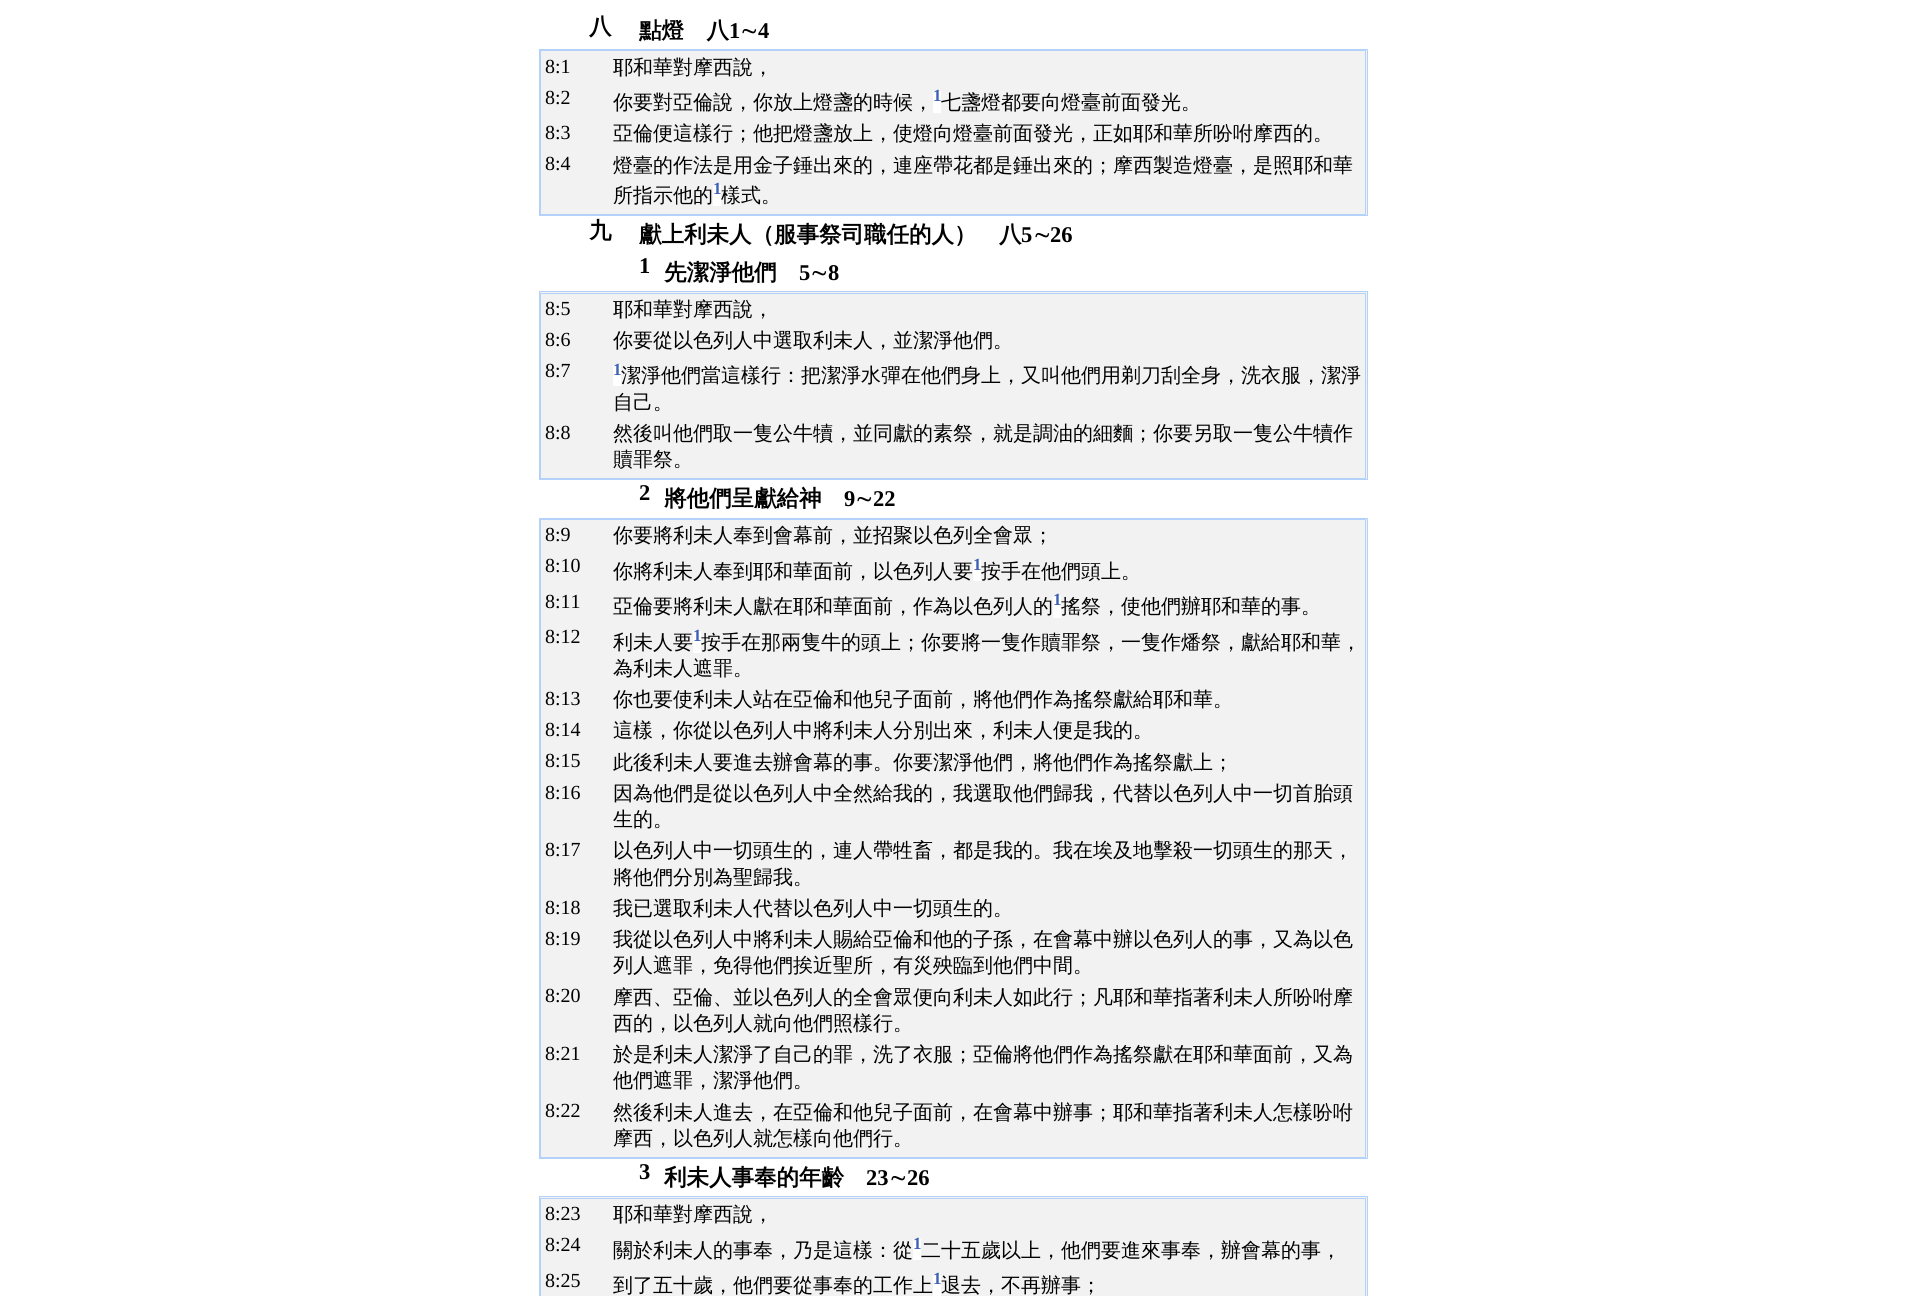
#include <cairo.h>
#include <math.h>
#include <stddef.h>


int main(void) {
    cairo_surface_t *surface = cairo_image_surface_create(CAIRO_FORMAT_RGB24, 1906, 1296);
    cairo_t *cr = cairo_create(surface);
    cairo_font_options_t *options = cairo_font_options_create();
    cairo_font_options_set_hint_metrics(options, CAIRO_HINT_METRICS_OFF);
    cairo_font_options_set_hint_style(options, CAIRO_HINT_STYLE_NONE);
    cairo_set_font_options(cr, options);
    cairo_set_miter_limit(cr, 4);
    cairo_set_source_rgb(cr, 1, 1, 1);
    cairo_paint(cr);
    cairo_select_font_face(cr, "WenQuanYi Zen Hei", CAIRO_FONT_SLANT_NORMAL, CAIRO_FONT_WEIGHT_BOLD);
    cairo_set_font_size(cr, 22.5);
    cairo_set_source_rgb(cr, 0, 0, 0);
    cairo_move_to(cr, 589, 34);
    cairo_show_text(cr, "八");
    cairo_move_to(cr, 639, 38);
    cairo_show_text(cr, "點燈　八");
    cairo_select_font_face(cr, "Liberation Serif", CAIRO_FONT_SLANT_NORMAL, CAIRO_FONT_WEIGHT_BOLD);
    cairo_move_to(cr, 729, 38);
    cairo_show_text(cr, "1");
    cairo_select_font_face(cr, "WenQuanYi Zen Hei", CAIRO_FONT_SLANT_NORMAL, CAIRO_FONT_WEIGHT_BOLD);
    cairo_move_to(cr, 740, 38);
    cairo_show_text(cr, "∼");
    cairo_select_font_face(cr, "Liberation Serif", CAIRO_FONT_SLANT_NORMAL, CAIRO_FONT_WEIGHT_BOLD);
    cairo_move_to(cr, 758, 38);
    cairo_show_text(cr, "4");
    cairo_set_source_rgb(cr, 0.949, 0.949, 0.949);
    cairo_rectangle(cr, 541, 50, 826, 165);
    cairo_fill(cr);
    cairo_rectangle(cr, 539.5, 49.5, 828, 166);
    cairo_set_source_rgb(cr, 0.706, 0.824, 0.973);
    cairo_set_line_width(cr, 1);
    cairo_stroke(cr);
    cairo_rectangle(cr, 540.5, 50.5, 825, 164);
    cairo_stroke(cr);
    cairo_select_font_face(cr, "Liberation Serif", CAIRO_FONT_SLANT_NORMAL, CAIRO_FONT_WEIGHT_NORMAL);
    cairo_set_font_size(cr, 20);
    cairo_set_source_rgb(cr, 0, 0, 0);
    cairo_move_to(cr, 545, 73);
    cairo_show_text(cr, "8:1");
    cairo_select_font_face(cr, "WenQuanYi Zen Hei Medium", CAIRO_FONT_SLANT_NORMAL, CAIRO_FONT_WEIGHT_NORMAL);
    cairo_move_to(cr, 613, 74);
    cairo_show_text(cr, "耶和華對摩西說，");
    cairo_select_font_face(cr, "Liberation Serif", CAIRO_FONT_SLANT_NORMAL, CAIRO_FONT_WEIGHT_NORMAL);
    cairo_move_to(cr, 545, 104);
    cairo_show_text(cr, "8:2");
    cairo_select_font_face(cr, "WenQuanYi Zen Hei Medium", CAIRO_FONT_SLANT_NORMAL, CAIRO_FONT_WEIGHT_NORMAL);
    cairo_move_to(cr, 613, 109);
    cairo_show_text(cr, "你要對亞倫說，你放上燈盞的時候，");
    cairo_set_source_rgb(cr, 1, 1, 1);
    cairo_rectangle(cr, 933, 91, 8, 22);
    cairo_fill(cr);
    cairo_select_font_face(cr, "Liberation Serif", CAIRO_FONT_SLANT_NORMAL, CAIRO_FONT_WEIGHT_BOLD);
    cairo_set_font_size(cr, 17);
    cairo_set_source_rgb(cr, 0.239, 0.38, 0.714);
    cairo_move_to(cr, 933, 101);
    cairo_show_text(cr, "1");
    cairo_select_font_face(cr, "WenQuanYi Zen Hei Medium", CAIRO_FONT_SLANT_NORMAL, CAIRO_FONT_WEIGHT_NORMAL);
    cairo_set_font_size(cr, 20);
    cairo_set_source_rgb(cr, 0, 0, 0);
    cairo_move_to(cr, 941, 109);
    cairo_show_text(cr, "七盞燈都要向燈臺前面發光。");
    cairo_select_font_face(cr, "Liberation Serif", CAIRO_FONT_SLANT_NORMAL, CAIRO_FONT_WEIGHT_NORMAL);
    cairo_move_to(cr, 545, 139);
    cairo_show_text(cr, "8:3");
    cairo_select_font_face(cr, "WenQuanYi Zen Hei Medium", CAIRO_FONT_SLANT_NORMAL, CAIRO_FONT_WEIGHT_NORMAL);
    cairo_move_to(cr, 613, 140);
    cairo_show_text(cr, "亞倫便這樣行；他把燈盞放上，使燈向燈臺前面發光，正如耶和華所吩咐摩西的。");
    cairo_select_font_face(cr, "Liberation Serif", CAIRO_FONT_SLANT_NORMAL, CAIRO_FONT_WEIGHT_NORMAL);
    cairo_move_to(cr, 545, 170);
    cairo_show_text(cr, "8:4");
    cairo_select_font_face(cr, "WenQuanYi Zen Hei Medium", CAIRO_FONT_SLANT_NORMAL, CAIRO_FONT_WEIGHT_NORMAL);
    cairo_move_to(cr, 613, 172);
    cairo_show_text(cr, "燈臺的作法是用金子錘出來的，連座帶花都是錘出來的；摩西製造燈臺，是照耶和華");
    cairo_move_to(cr, 613, 202);
    cairo_show_text(cr, "所指示他的");
    cairo_set_source_rgb(cr, 1, 1, 1);
    cairo_rectangle(cr, 713, 185, 8, 21);
    cairo_fill(cr);
    cairo_select_font_face(cr, "Liberation Serif", CAIRO_FONT_SLANT_NORMAL, CAIRO_FONT_WEIGHT_BOLD);
    cairo_set_font_size(cr, 17);
    cairo_set_source_rgb(cr, 0.239, 0.38, 0.714);
    cairo_move_to(cr, 713, 194);
    cairo_show_text(cr, "1");
    cairo_select_font_face(cr, "WenQuanYi Zen Hei Medium", CAIRO_FONT_SLANT_NORMAL, CAIRO_FONT_WEIGHT_NORMAL);
    cairo_set_font_size(cr, 20);
    cairo_set_source_rgb(cr, 0, 0, 0);
    cairo_move_to(cr, 721, 202);
    cairo_show_text(cr, "樣式。");
    cairo_select_font_face(cr, "WenQuanYi Zen Hei", CAIRO_FONT_SLANT_NORMAL, CAIRO_FONT_WEIGHT_BOLD);
    cairo_set_font_size(cr, 22.5);
    cairo_move_to(cr, 589, 238);
    cairo_show_text(cr, "九");
    cairo_move_to(cr, 639, 242);
    cairo_show_text(cr, "獻上利未人（服事祭司職任的人）　八");
    cairo_select_font_face(cr, "Liberation Serif", CAIRO_FONT_SLANT_NORMAL, CAIRO_FONT_WEIGHT_BOLD);
    cairo_move_to(cr, 1021, 242);
    cairo_show_text(cr, "5");
    cairo_select_font_face(cr, "WenQuanYi Zen Hei", CAIRO_FONT_SLANT_NORMAL, CAIRO_FONT_WEIGHT_BOLD);
    cairo_move_to(cr, 1033, 242);
    cairo_show_text(cr, "∼");
    cairo_select_font_face(cr, "Liberation Serif", CAIRO_FONT_SLANT_NORMAL, CAIRO_FONT_WEIGHT_BOLD);
    cairo_move_to(cr, 1050, 242);
    cairo_show_text(cr, "26");
    cairo_move_to(cr, 639, 273);
    cairo_show_text(cr, "1");
    cairo_select_font_face(cr, "WenQuanYi Zen Hei", CAIRO_FONT_SLANT_NORMAL, CAIRO_FONT_WEIGHT_BOLD);
    cairo_move_to(cr, 664, 280);
    cairo_show_text(cr, "先潔淨他們");
    cairo_select_font_face(cr, "Liberation Serif", CAIRO_FONT_SLANT_NORMAL, CAIRO_FONT_WEIGHT_BOLD);
    cairo_move_to(cr, 799, 280);
    cairo_show_text(cr, "5");
    cairo_select_font_face(cr, "WenQuanYi Zen Hei", CAIRO_FONT_SLANT_NORMAL, CAIRO_FONT_WEIGHT_BOLD);
    cairo_move_to(cr, 810, 280);
    cairo_show_text(cr, "∼");
    cairo_select_font_face(cr, "Liberation Serif", CAIRO_FONT_SLANT_NORMAL, CAIRO_FONT_WEIGHT_BOLD);
    cairo_move_to(cr, 828, 280);
    cairo_show_text(cr, "8");
    cairo_set_source_rgb(cr, 0.949, 0.949, 0.949);
    cairo_rectangle(cr, 539.5, 291.5, 828, 188);
    cairo_fill_preserve(cr);
    cairo_set_source_rgb(cr, 0.706, 0.824, 0.973);
    cairo_stroke(cr);
    cairo_rectangle(cr, 540.5, 293.5, 825, 185);
    cairo_stroke(cr);
    cairo_select_font_face(cr, "Liberation Serif", CAIRO_FONT_SLANT_NORMAL, CAIRO_FONT_WEIGHT_NORMAL);
    cairo_set_font_size(cr, 20);
    cairo_set_source_rgb(cr, 0, 0, 0);
    cairo_move_to(cr, 545, 315);
    cairo_show_text(cr, "8:5");
    cairo_select_font_face(cr, "WenQuanYi Zen Hei Medium", CAIRO_FONT_SLANT_NORMAL, CAIRO_FONT_WEIGHT_NORMAL);
    cairo_move_to(cr, 613, 316);
    cairo_show_text(cr, "耶和華對摩西說，");
    cairo_select_font_face(cr, "Liberation Serif", CAIRO_FONT_SLANT_NORMAL, CAIRO_FONT_WEIGHT_NORMAL);
    cairo_move_to(cr, 545, 346);
    cairo_show_text(cr, "8:6");
    cairo_select_font_face(cr, "WenQuanYi Zen Hei Medium", CAIRO_FONT_SLANT_NORMAL, CAIRO_FONT_WEIGHT_NORMAL);
    cairo_move_to(cr, 613, 347);
    cairo_show_text(cr, "你要從以色列人中選取利未人，並潔淨他們。");
    cairo_select_font_face(cr, "Liberation Serif", CAIRO_FONT_SLANT_NORMAL, CAIRO_FONT_WEIGHT_NORMAL);
    cairo_move_to(cr, 545, 377);
    cairo_show_text(cr, "8:7");
    cairo_set_source_rgb(cr, 1, 1, 1);
    cairo_rectangle(cr, 613, 365, 8, 21);
    cairo_fill(cr);
    cairo_select_font_face(cr, "Liberation Serif", CAIRO_FONT_SLANT_NORMAL, CAIRO_FONT_WEIGHT_BOLD);
    cairo_set_font_size(cr, 17);
    cairo_set_source_rgb(cr, 0.239, 0.38, 0.714);
    cairo_move_to(cr, 613, 375);
    cairo_show_text(cr, "1");
    cairo_select_font_face(cr, "WenQuanYi Zen Hei Medium", CAIRO_FONT_SLANT_NORMAL, CAIRO_FONT_WEIGHT_NORMAL);
    cairo_set_font_size(cr, 20);
    cairo_set_source_rgb(cr, 0, 0, 0);
    cairo_move_to(cr, 621, 382);
    cairo_show_text(cr, "潔淨他們當這樣行：把潔淨水彈在他們身上，又叫他們用剃刀刮全身，洗衣服，潔淨");
    cairo_move_to(cr, 613, 409);
    cairo_show_text(cr, "自己。");
    cairo_select_font_face(cr, "Liberation Serif", CAIRO_FONT_SLANT_NORMAL, CAIRO_FONT_WEIGHT_NORMAL);
    cairo_move_to(cr, 545, 439);
    cairo_show_text(cr, "8:8");
    cairo_select_font_face(cr, "WenQuanYi Zen Hei Medium", CAIRO_FONT_SLANT_NORMAL, CAIRO_FONT_WEIGHT_NORMAL);
    cairo_move_to(cr, 613, 440);
    cairo_show_text(cr, "然後叫他們取一隻公牛犢，並同獻的素祭，就是調油的細麵；你要另取一隻公牛犢作");
    cairo_move_to(cr, 613, 466);
    cairo_show_text(cr, "贖罪祭。");
    cairo_select_font_face(cr, "Liberation Serif", CAIRO_FONT_SLANT_NORMAL, CAIRO_FONT_WEIGHT_BOLD);
    cairo_set_font_size(cr, 22.5);
    cairo_move_to(cr, 639, 500);
    cairo_show_text(cr, "2");
    cairo_select_font_face(cr, "WenQuanYi Zen Hei", CAIRO_FONT_SLANT_NORMAL, CAIRO_FONT_WEIGHT_BOLD);
    cairo_move_to(cr, 664, 506);
    cairo_show_text(cr, "將他們呈獻給神");
    cairo_select_font_face(cr, "Liberation Serif", CAIRO_FONT_SLANT_NORMAL, CAIRO_FONT_WEIGHT_BOLD);
    cairo_move_to(cr, 844, 506);
    cairo_show_text(cr, "9");
    cairo_select_font_face(cr, "WenQuanYi Zen Hei", CAIRO_FONT_SLANT_NORMAL, CAIRO_FONT_WEIGHT_BOLD);
    cairo_move_to(cr, 855, 506);
    cairo_show_text(cr, "∼");
    cairo_select_font_face(cr, "Liberation Serif", CAIRO_FONT_SLANT_NORMAL, CAIRO_FONT_WEIGHT_BOLD);
    cairo_move_to(cr, 873, 506);
    cairo_show_text(cr, "22");
    cairo_set_source_rgb(cr, 0.949, 0.949, 0.949);
    cairo_rectangle(cr, 541, 519, 826, 639);
    cairo_fill(cr);
    cairo_rectangle(cr, 539.5, 518.5, 828, 640);
    cairo_set_source_rgb(cr, 0.706, 0.824, 0.973);
    cairo_stroke(cr);
    cairo_rectangle(cr, 540.5, 519.5, 825, 638);
    cairo_stroke(cr);
    cairo_select_font_face(cr, "Liberation Serif", CAIRO_FONT_SLANT_NORMAL, CAIRO_FONT_WEIGHT_NORMAL);
    cairo_set_font_size(cr, 20);
    cairo_set_source_rgb(cr, 0, 0, 0);
    cairo_move_to(cr, 545, 541);
    cairo_show_text(cr, "8:9");
    cairo_select_font_face(cr, "WenQuanYi Zen Hei Medium", CAIRO_FONT_SLANT_NORMAL, CAIRO_FONT_WEIGHT_NORMAL);
    cairo_move_to(cr, 613, 542);
    cairo_show_text(cr, "你要將利未人奉到會幕前，並招聚以色列全會眾；");
    cairo_select_font_face(cr, "Liberation Serif", CAIRO_FONT_SLANT_NORMAL, CAIRO_FONT_WEIGHT_NORMAL);
    cairo_move_to(cr, 545, 572);
    cairo_show_text(cr, "8:10");
    cairo_select_font_face(cr, "WenQuanYi Zen Hei Medium", CAIRO_FONT_SLANT_NORMAL, CAIRO_FONT_WEIGHT_NORMAL);
    cairo_move_to(cr, 613, 578);
    cairo_show_text(cr, "你將利未人奉到耶和華面前，以色列人要");
    cairo_set_source_rgb(cr, 1, 1, 1);
    cairo_rectangle(cr, 973, 560, 8, 21);
    cairo_fill(cr);
    cairo_select_font_face(cr, "Liberation Serif", CAIRO_FONT_SLANT_NORMAL, CAIRO_FONT_WEIGHT_BOLD);
    cairo_set_font_size(cr, 17);
    cairo_set_source_rgb(cr, 0.239, 0.38, 0.714);
    cairo_move_to(cr, 973, 570);
    cairo_show_text(cr, "1");
    cairo_select_font_face(cr, "WenQuanYi Zen Hei Medium", CAIRO_FONT_SLANT_NORMAL, CAIRO_FONT_WEIGHT_NORMAL);
    cairo_set_font_size(cr, 20);
    cairo_set_source_rgb(cr, 0, 0, 0);
    cairo_move_to(cr, 981, 578);
    cairo_show_text(cr, "按手在他們頭上。");
    cairo_select_font_face(cr, "Liberation Serif", CAIRO_FONT_SLANT_NORMAL, CAIRO_FONT_WEIGHT_NORMAL);
    cairo_move_to(cr, 545, 608);
    cairo_show_text(cr, "8:11");
    cairo_select_font_face(cr, "WenQuanYi Zen Hei Medium", CAIRO_FONT_SLANT_NORMAL, CAIRO_FONT_WEIGHT_NORMAL);
    cairo_move_to(cr, 613, 613);
    cairo_show_text(cr, "亞倫要將利未人獻在耶和華面前，作為以色列人的");
    cairo_set_source_rgb(cr, 1, 1, 1);
    cairo_rectangle(cr, 1053, 596, 8, 22);
    cairo_fill(cr);
    cairo_select_font_face(cr, "Liberation Serif", CAIRO_FONT_SLANT_NORMAL, CAIRO_FONT_WEIGHT_BOLD);
    cairo_set_font_size(cr, 17);
    cairo_set_source_rgb(cr, 0.239, 0.38, 0.714);
    cairo_move_to(cr, 1053, 605);
    cairo_show_text(cr, "1");
    cairo_select_font_face(cr, "WenQuanYi Zen Hei Medium", CAIRO_FONT_SLANT_NORMAL, CAIRO_FONT_WEIGHT_NORMAL);
    cairo_set_font_size(cr, 20);
    cairo_set_source_rgb(cr, 0, 0, 0);
    cairo_move_to(cr, 1061, 613);
    cairo_show_text(cr, "搖祭，使他們辦耶和華的事。");
    cairo_select_font_face(cr, "Liberation Serif", CAIRO_FONT_SLANT_NORMAL, CAIRO_FONT_WEIGHT_NORMAL);
    cairo_move_to(cr, 545, 643);
    cairo_show_text(cr, "8:12");
    cairo_select_font_face(cr, "WenQuanYi Zen Hei Medium", CAIRO_FONT_SLANT_NORMAL, CAIRO_FONT_WEIGHT_NORMAL);
    cairo_move_to(cr, 613, 649);
    cairo_show_text(cr, "利未人要");
    cairo_set_source_rgb(cr, 1, 1, 1);
    cairo_rectangle(cr, 693, 631, 8, 22);
    cairo_fill(cr);
    cairo_select_font_face(cr, "Liberation Serif", CAIRO_FONT_SLANT_NORMAL, CAIRO_FONT_WEIGHT_BOLD);
    cairo_set_font_size(cr, 17);
    cairo_set_source_rgb(cr, 0.239, 0.38, 0.714);
    cairo_move_to(cr, 693, 641);
    cairo_show_text(cr, "1");
    cairo_select_font_face(cr, "WenQuanYi Zen Hei Medium", CAIRO_FONT_SLANT_NORMAL, CAIRO_FONT_WEIGHT_NORMAL);
    cairo_set_font_size(cr, 20);
    cairo_set_source_rgb(cr, 0, 0, 0);
    cairo_move_to(cr, 701, 649);
    cairo_show_text(cr, "按手在那兩隻牛的頭上；你要將一隻作贖罪祭，一隻作燔祭，獻給耶和華，");
    cairo_move_to(cr, 613, 675);
    cairo_show_text(cr, "為利未人遮罪。");
    cairo_select_font_face(cr, "Liberation Serif", CAIRO_FONT_SLANT_NORMAL, CAIRO_FONT_WEIGHT_NORMAL);
    cairo_move_to(cr, 545, 705);
    cairo_show_text(cr, "8:13");
    cairo_select_font_face(cr, "WenQuanYi Zen Hei Medium", CAIRO_FONT_SLANT_NORMAL, CAIRO_FONT_WEIGHT_NORMAL);
    cairo_move_to(cr, 613, 706);
    cairo_show_text(cr, "你也要使利未人站在亞倫和他兒子面前，將他們作為搖祭獻給耶和華。");
    cairo_select_font_face(cr, "Liberation Serif", CAIRO_FONT_SLANT_NORMAL, CAIRO_FONT_WEIGHT_NORMAL);
    cairo_move_to(cr, 545, 736);
    cairo_show_text(cr, "8:14");
    cairo_select_font_face(cr, "WenQuanYi Zen Hei Medium", CAIRO_FONT_SLANT_NORMAL, CAIRO_FONT_WEIGHT_NORMAL);
    cairo_move_to(cr, 613, 737);
    cairo_show_text(cr, "這樣，你從以色列人中將利未人分別出來，利未人便是我的。");
    cairo_select_font_face(cr, "Liberation Serif", CAIRO_FONT_SLANT_NORMAL, CAIRO_FONT_WEIGHT_NORMAL);
    cairo_move_to(cr, 545, 767);
    cairo_show_text(cr, "8:15");
    cairo_select_font_face(cr, "WenQuanYi Zen Hei Medium", CAIRO_FONT_SLANT_NORMAL, CAIRO_FONT_WEIGHT_NORMAL);
    cairo_move_to(cr, 613, 769);
    cairo_show_text(cr, "此後利未人要進去辦會幕的事。你要潔淨他們，將他們作為搖祭獻上；");
    cairo_select_font_face(cr, "Liberation Serif", CAIRO_FONT_SLANT_NORMAL, CAIRO_FONT_WEIGHT_NORMAL);
    cairo_move_to(cr, 545, 799);
    cairo_show_text(cr, "8:16");
    cairo_select_font_face(cr, "WenQuanYi Zen Hei Medium", CAIRO_FONT_SLANT_NORMAL, CAIRO_FONT_WEIGHT_NORMAL);
    cairo_move_to(cr, 613, 800);
    cairo_show_text(cr, "因為他們是從以色列人中全然給我的，我選取他們歸我，代替以色列人中一切首胎頭");
    cairo_move_to(cr, 613, 826);
    cairo_show_text(cr, "生的。");
    cairo_select_font_face(cr, "Liberation Serif", CAIRO_FONT_SLANT_NORMAL, CAIRO_FONT_WEIGHT_NORMAL);
    cairo_move_to(cr, 545, 856);
    cairo_show_text(cr, "8:17");
    cairo_select_font_face(cr, "WenQuanYi Zen Hei Medium", CAIRO_FONT_SLANT_NORMAL, CAIRO_FONT_WEIGHT_NORMAL);
    cairo_move_to(cr, 613, 857);
    cairo_show_text(cr, "以色列人中一切頭生的，連人帶牲畜，都是我的。我在埃及地擊殺一切頭生的那天，");
    cairo_move_to(cr, 613, 884);
    cairo_show_text(cr, "將他們分別為聖歸我。");
    cairo_select_font_face(cr, "Liberation Serif", CAIRO_FONT_SLANT_NORMAL, CAIRO_FONT_WEIGHT_NORMAL);
    cairo_move_to(cr, 545, 914);
    cairo_show_text(cr, "8:18");
    cairo_select_font_face(cr, "WenQuanYi Zen Hei Medium", CAIRO_FONT_SLANT_NORMAL, CAIRO_FONT_WEIGHT_NORMAL);
    cairo_move_to(cr, 613, 915);
    cairo_show_text(cr, "我已選取利未人代替以色列人中一切頭生的。");
    cairo_select_font_face(cr, "Liberation Serif", CAIRO_FONT_SLANT_NORMAL, CAIRO_FONT_WEIGHT_NORMAL);
    cairo_move_to(cr, 545, 945);
    cairo_show_text(cr, "8:19");
    cairo_select_font_face(cr, "WenQuanYi Zen Hei Medium", CAIRO_FONT_SLANT_NORMAL, CAIRO_FONT_WEIGHT_NORMAL);
    cairo_move_to(cr, 613, 946);
    cairo_show_text(cr, "我從以色列人中將利未人賜給亞倫和他的子孫，在會幕中辦以色列人的事，又為以色");
    cairo_move_to(cr, 613, 972);
    cairo_show_text(cr, "列人遮罪，免得他們挨近聖所，有災殃臨到他們中間。");
    cairo_select_font_face(cr, "Liberation Serif", CAIRO_FONT_SLANT_NORMAL, CAIRO_FONT_WEIGHT_NORMAL);
    cairo_move_to(cr, 545, 1002);
    cairo_show_text(cr, "8:20");
    cairo_select_font_face(cr, "WenQuanYi Zen Hei Medium", CAIRO_FONT_SLANT_NORMAL, CAIRO_FONT_WEIGHT_NORMAL);
    cairo_move_to(cr, 613, 1004);
    cairo_show_text(cr, "摩西、亞倫、並以色列人的全會眾便向利未人如此行；凡耶和華指著利未人所吩咐摩");
    cairo_move_to(cr, 613, 1030);
    cairo_show_text(cr, "西的，以色列人就向他們照樣行。");
    cairo_select_font_face(cr, "Liberation Serif", CAIRO_FONT_SLANT_NORMAL, CAIRO_FONT_WEIGHT_NORMAL);
    cairo_move_to(cr, 545, 1060);
    cairo_show_text(cr, "8:21");
    cairo_select_font_face(cr, "WenQuanYi Zen Hei Medium", CAIRO_FONT_SLANT_NORMAL, CAIRO_FONT_WEIGHT_NORMAL);
    cairo_move_to(cr, 613, 1061);
    cairo_show_text(cr, "於是利未人潔淨了自己的罪，洗了衣服；亞倫將他們作為搖祭獻在耶和華面前，又為");
    cairo_move_to(cr, 613, 1087);
    cairo_show_text(cr, "他們遮罪，潔淨他們。");
    cairo_select_font_face(cr, "Liberation Serif", CAIRO_FONT_SLANT_NORMAL, CAIRO_FONT_WEIGHT_NORMAL);
    cairo_move_to(cr, 545, 1117);
    cairo_show_text(cr, "8:22");
    cairo_select_font_face(cr, "WenQuanYi Zen Hei Medium", CAIRO_FONT_SLANT_NORMAL, CAIRO_FONT_WEIGHT_NORMAL);
    cairo_move_to(cr, 613, 1119);
    cairo_show_text(cr, "然後利未人進去，在亞倫和他兒子面前，在會幕中辦事；耶和華指著利未人怎樣吩咐");
    cairo_move_to(cr, 613, 1145);
    cairo_show_text(cr, "摩西，以色列人就怎樣向他們行。");
    cairo_select_font_face(cr, "Liberation Serif", CAIRO_FONT_SLANT_NORMAL, CAIRO_FONT_WEIGHT_BOLD);
    cairo_set_font_size(cr, 22.5);
    cairo_move_to(cr, 639, 1179);
    cairo_show_text(cr, "3");
    cairo_select_font_face(cr, "WenQuanYi Zen Hei", CAIRO_FONT_SLANT_NORMAL, CAIRO_FONT_WEIGHT_BOLD);
    cairo_move_to(cr, 664, 1185);
    cairo_show_text(cr, "利未人事奉的年齡");
    cairo_select_font_face(cr, "Liberation Serif", CAIRO_FONT_SLANT_NORMAL, CAIRO_FONT_WEIGHT_BOLD);
    cairo_move_to(cr, 866, 1185);
    cairo_show_text(cr, "23");
    cairo_select_font_face(cr, "WenQuanYi Zen Hei", CAIRO_FONT_SLANT_NORMAL, CAIRO_FONT_WEIGHT_BOLD);
    cairo_move_to(cr, 889, 1185);
    cairo_show_text(cr, "∼");
    cairo_select_font_face(cr, "Liberation Serif", CAIRO_FONT_SLANT_NORMAL, CAIRO_FONT_WEIGHT_BOLD);
    cairo_move_to(cr, 907, 1185);
    cairo_show_text(cr, "26");
    cairo_set_source_rgb(cr, 0.949, 0.949, 0.949);
    cairo_rectangle(cr, 539.5, 1196.5, 828, 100);
    cairo_fill_preserve(cr);
    cairo_set_source_rgb(cr, 0.706, 0.824, 0.973);
    cairo_stroke(cr);
    cairo_rectangle(cr, 540.5, 1198.5, 825, 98);
    cairo_stroke(cr);
    cairo_select_font_face(cr, "Liberation Serif", CAIRO_FONT_SLANT_NORMAL, CAIRO_FONT_WEIGHT_NORMAL);
    cairo_set_font_size(cr, 20);
    cairo_set_source_rgb(cr, 0, 0, 0);
    cairo_move_to(cr, 545, 1220);
    cairo_show_text(cr, "8:23");
    cairo_select_font_face(cr, "WenQuanYi Zen Hei Medium", CAIRO_FONT_SLANT_NORMAL, CAIRO_FONT_WEIGHT_NORMAL);
    cairo_move_to(cr, 613, 1221);
    cairo_show_text(cr, "耶和華對摩西說，");
    cairo_select_font_face(cr, "Liberation Serif", CAIRO_FONT_SLANT_NORMAL, CAIRO_FONT_WEIGHT_NORMAL);
    cairo_move_to(cr, 545, 1251);
    cairo_show_text(cr, "8:24");
    cairo_select_font_face(cr, "WenQuanYi Zen Hei Medium", CAIRO_FONT_SLANT_NORMAL, CAIRO_FONT_WEIGHT_NORMAL);
    cairo_move_to(cr, 613, 1257);
    cairo_show_text(cr, "關於利未人的事奉，乃是這樣：從");
    cairo_set_source_rgb(cr, 1, 1, 1);
    cairo_rectangle(cr, 913, 1239, 8, 21);
    cairo_fill(cr);
    cairo_select_font_face(cr, "Liberation Serif", CAIRO_FONT_SLANT_NORMAL, CAIRO_FONT_WEIGHT_BOLD);
    cairo_set_font_size(cr, 17);
    cairo_set_source_rgb(cr, 0.239, 0.38, 0.714);
    cairo_move_to(cr, 913, 1249);
    cairo_show_text(cr, "1");
    cairo_select_font_face(cr, "WenQuanYi Zen Hei Medium", CAIRO_FONT_SLANT_NORMAL, CAIRO_FONT_WEIGHT_NORMAL);
    cairo_set_font_size(cr, 20);
    cairo_set_source_rgb(cr, 0, 0, 0);
    cairo_move_to(cr, 921, 1257);
    cairo_show_text(cr, "二十五歲以上，他們要進來事奉，辦會幕的事，");
    cairo_select_font_face(cr, "Liberation Serif", CAIRO_FONT_SLANT_NORMAL, CAIRO_FONT_WEIGHT_NORMAL);
    cairo_move_to(cr, 545, 1287);
    cairo_show_text(cr, "8:25");
    cairo_select_font_face(cr, "WenQuanYi Zen Hei Medium", CAIRO_FONT_SLANT_NORMAL, CAIRO_FONT_WEIGHT_NORMAL);
    cairo_move_to(cr, 613, 1292);
    cairo_show_text(cr, "到了五十歲，他們要從事奉的工作上");
    cairo_set_source_rgb(cr, 1, 1, 1);
    cairo_rectangle(cr, 933, 1275, 8, 21);
    cairo_fill(cr);
    cairo_select_font_face(cr, "Liberation Serif", CAIRO_FONT_SLANT_NORMAL, CAIRO_FONT_WEIGHT_BOLD);
    cairo_set_font_size(cr, 17);
    cairo_set_source_rgb(cr, 0.239, 0.38, 0.714);
    cairo_move_to(cr, 933, 1284);
    cairo_show_text(cr, "1");
    cairo_select_font_face(cr, "WenQuanYi Zen Hei Medium", CAIRO_FONT_SLANT_NORMAL, CAIRO_FONT_WEIGHT_NORMAL);
    cairo_set_font_size(cr, 20);
    cairo_set_source_rgb(cr, 0, 0, 0);
    cairo_move_to(cr, 941, 1292);
    cairo_show_text(cr, "退去，不再辦事；");
    cairo_surface_write_to_png(surface, "page.png");
    cairo_font_options_destroy(options);
    cairo_destroy(cr);
    cairo_surface_destroy(surface);
    return 0;
}
